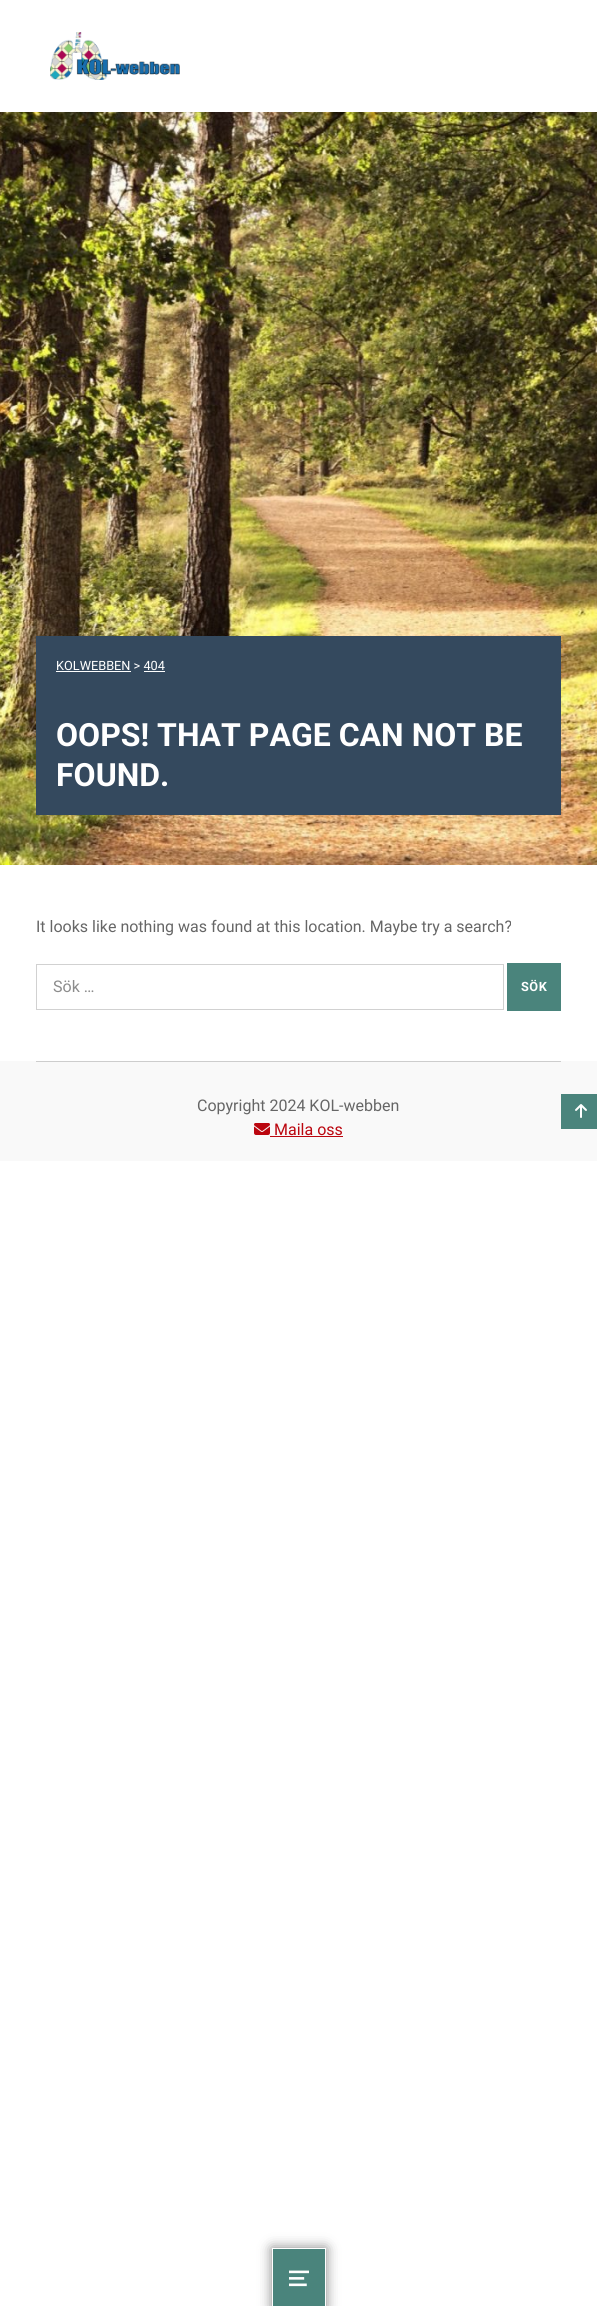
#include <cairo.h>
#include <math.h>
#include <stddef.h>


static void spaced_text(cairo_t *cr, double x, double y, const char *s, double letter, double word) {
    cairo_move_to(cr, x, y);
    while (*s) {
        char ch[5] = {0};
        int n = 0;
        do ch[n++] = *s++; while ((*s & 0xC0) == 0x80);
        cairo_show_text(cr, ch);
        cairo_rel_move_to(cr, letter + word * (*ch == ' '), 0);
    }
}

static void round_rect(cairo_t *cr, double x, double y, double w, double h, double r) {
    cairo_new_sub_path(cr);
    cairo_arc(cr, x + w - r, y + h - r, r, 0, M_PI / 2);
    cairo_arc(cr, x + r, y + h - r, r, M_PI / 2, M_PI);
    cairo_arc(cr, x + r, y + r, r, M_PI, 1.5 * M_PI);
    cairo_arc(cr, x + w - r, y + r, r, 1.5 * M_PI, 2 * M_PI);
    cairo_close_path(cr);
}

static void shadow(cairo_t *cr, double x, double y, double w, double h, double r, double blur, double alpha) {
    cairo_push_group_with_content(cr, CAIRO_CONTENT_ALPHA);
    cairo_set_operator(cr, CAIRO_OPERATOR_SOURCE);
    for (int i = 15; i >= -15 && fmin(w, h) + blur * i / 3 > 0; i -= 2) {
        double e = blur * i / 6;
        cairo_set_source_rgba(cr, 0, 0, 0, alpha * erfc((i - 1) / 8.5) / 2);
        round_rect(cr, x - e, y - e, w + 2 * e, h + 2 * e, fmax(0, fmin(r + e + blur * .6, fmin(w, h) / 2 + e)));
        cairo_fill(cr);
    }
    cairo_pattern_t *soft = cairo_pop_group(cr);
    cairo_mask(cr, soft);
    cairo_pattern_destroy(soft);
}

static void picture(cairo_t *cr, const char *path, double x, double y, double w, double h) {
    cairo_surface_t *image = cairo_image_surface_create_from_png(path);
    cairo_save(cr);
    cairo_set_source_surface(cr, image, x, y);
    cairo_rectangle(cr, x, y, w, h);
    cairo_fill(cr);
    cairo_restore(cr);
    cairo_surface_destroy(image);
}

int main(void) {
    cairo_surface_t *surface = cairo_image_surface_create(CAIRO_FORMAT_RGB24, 597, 2306);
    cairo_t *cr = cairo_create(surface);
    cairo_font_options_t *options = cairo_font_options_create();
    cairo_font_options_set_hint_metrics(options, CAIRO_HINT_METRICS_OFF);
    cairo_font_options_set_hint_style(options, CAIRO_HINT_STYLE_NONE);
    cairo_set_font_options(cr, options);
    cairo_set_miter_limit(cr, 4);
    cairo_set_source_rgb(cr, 1, 1, 1);
    cairo_paint(cr);
    picture(cr, "img1.png", 50, 32, 130, 48);
    cairo_set_source_rgb(cr, 0, 0, 0);
    shadow(cr, 272, 2248, 54, 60, 0, 6.5, 0.5);
    cairo_set_source_rgb(cr, 0.29, 0.518, 0.486);
    cairo_rectangle(cr, 272.5, 2248.5, 53, 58);
    cairo_fill_preserve(cr);
    cairo_set_source_rgb(cr, 1, 1, 1);
    cairo_set_line_width(cr, 1);
    cairo_stroke(cr);
    picture(cr, "img2.png", 289, 2270, 20, 17);
    picture(cr, "img3.png", 0, 112, 597, 753);
    cairo_set_source_rgb(cr, 0.204, 0.286, 0.369);
    cairo_rectangle(cr, 36, 636, 525, 179);
    cairo_fill(cr);
    cairo_select_font_face(cr, "Roboto", CAIRO_FONT_SLANT_NORMAL, CAIRO_FONT_WEIGHT_NORMAL);
    cairo_set_font_size(cr, 12.75);
    cairo_set_source_rgb(cr, 1, 1, 1);
    cairo_move_to(cr, 56, 670);
    cairo_show_text(cr, "KOLWEBBEN > 404");
    cairo_rectangle(cr, 56, 671, 75, 1);
    cairo_fill(cr);
    cairo_rectangle(cr, 144, 671, 21, 1);
    cairo_fill(cr);
    cairo_select_font_face(cr, "Roboto", CAIRO_FONT_SLANT_NORMAL, CAIRO_FONT_WEIGHT_BOLD);
    cairo_set_font_size(cr, 32);
    cairo_move_to(cr, 56, 746);
    cairo_show_text(cr, "OOPS! THAT PAGE CAN NOT BE");
    cairo_move_to(cr, 56, 786);
    cairo_show_text(cr, "FOUND.");
    cairo_select_font_face(cr, "Roboto", CAIRO_FONT_SLANT_NORMAL, CAIRO_FONT_WEIGHT_NORMAL);
    cairo_set_font_size(cr, 16);
    cairo_set_source_rgb(cr, 0.4, 0.4, 0.4);
    cairo_move_to(cr, 36, 932);
    cairo_show_text(cr, "It looks like nothing was found at this location. Maybe try a search?");
    cairo_rectangle(cr, 36.5, 964.5, 467, 45);
    cairo_set_source_rgb(cr, 0.82, 0.82, 0.82);
    cairo_stroke(cr);
    cairo_set_source_rgb(cr, 0.549, 0.549, 0.549);
    cairo_move_to(cr, 53, 992);
    cairo_show_text(cr, "Sök …");
    cairo_set_source_rgb(cr, 0.29, 0.518, 0.486);
    cairo_rectangle(cr, 507, 963, 54, 48);
    cairo_fill(cr);
    cairo_select_font_face(cr, "Roboto", CAIRO_FONT_SLANT_NORMAL, CAIRO_FONT_WEIGHT_BOLD);
    cairo_set_font_size(cr, 12.75);
    cairo_set_source_rgb(cr, 1, 1, 1);
    spaced_text(cr, 521, 991, "SÖK", 0.5, 0);
    cairo_set_source_rgb(cr, 0.976, 0.976, 0.976);
    cairo_rectangle(cr, 0, 1061, 597, 100);
    cairo_fill(cr);
    cairo_set_source_rgb(cr, 0.804, 0.804, 0.804);
    cairo_rectangle(cr, 36, 1061, 525, 1);
    cairo_fill(cr);
    cairo_select_font_face(cr, "Roboto", CAIRO_FONT_SLANT_NORMAL, CAIRO_FONT_WEIGHT_NORMAL);
    cairo_set_font_size(cr, 16);
    cairo_set_source_rgb(cr, 0.4, 0.4, 0.4);
    cairo_move_to(cr, 197, 1111);
    cairo_show_text(cr, "Copyright 2024 KOL-webben");
    picture(cr, "img4.png", 254, 1123, 16, 12);
    cairo_set_source_rgb(cr, 0.733, 0.024, 0.059);
    cairo_move_to(cr, 274, 1135);
    cairo_show_text(cr, "Maila oss");
    cairo_rectangle(cr, 270, 1136, 73, 1);
    cairo_fill(cr);
    cairo_set_source_rgb(cr, 0.29, 0.518, 0.486);
    cairo_rectangle(cr, 561, 1094, 36, 35);
    cairo_fill(cr);
    picture(cr, "img5.png", 575, 1104, 12, 14);
    cairo_surface_write_to_png(surface, "page.png");
    cairo_font_options_destroy(options);
    cairo_destroy(cr);
    cairo_surface_destroy(surface);
    return 0;
}
